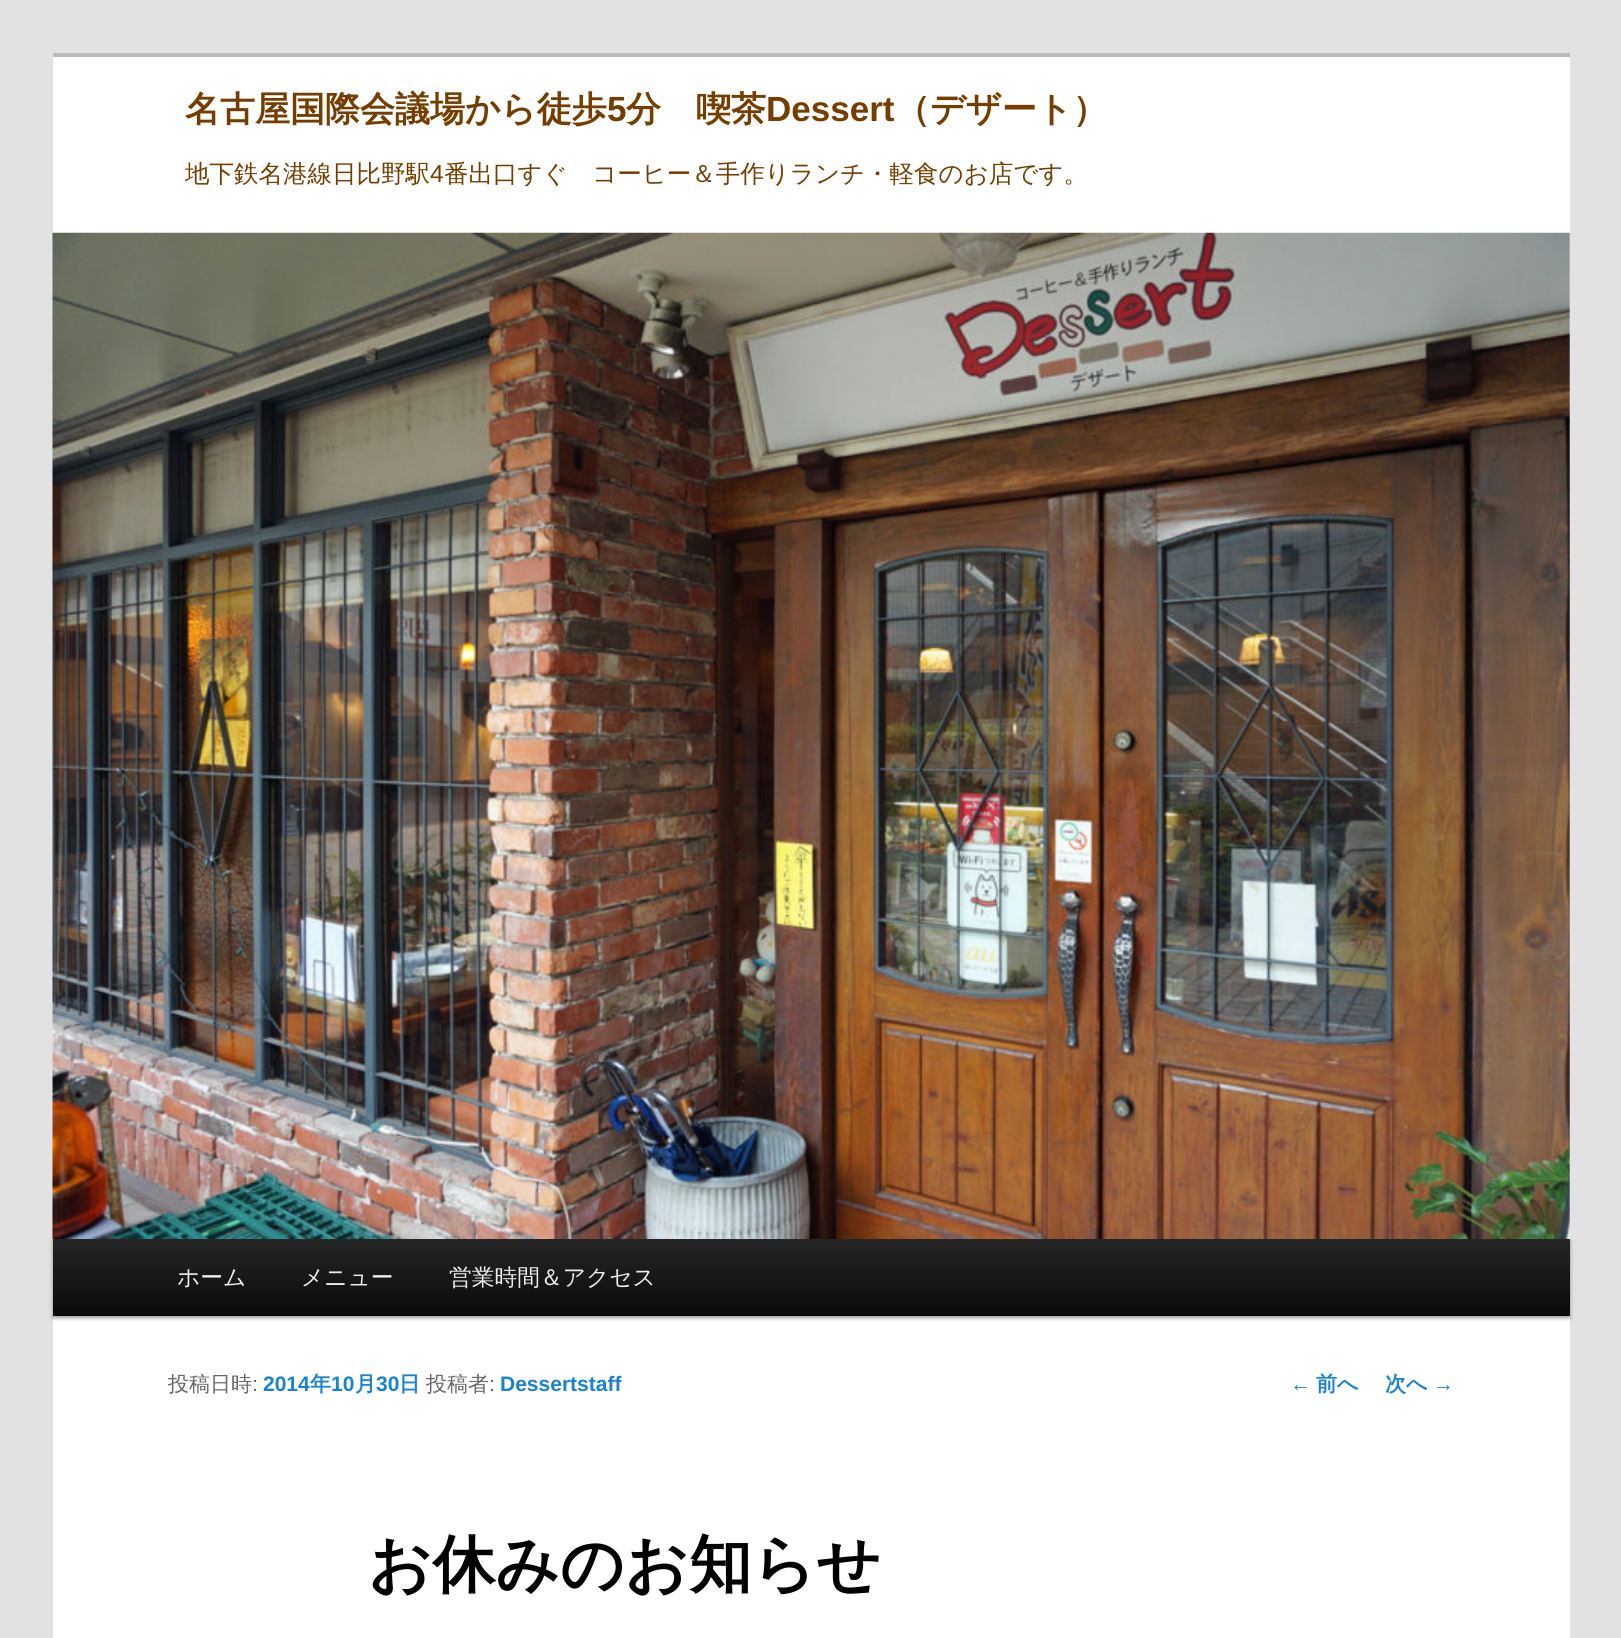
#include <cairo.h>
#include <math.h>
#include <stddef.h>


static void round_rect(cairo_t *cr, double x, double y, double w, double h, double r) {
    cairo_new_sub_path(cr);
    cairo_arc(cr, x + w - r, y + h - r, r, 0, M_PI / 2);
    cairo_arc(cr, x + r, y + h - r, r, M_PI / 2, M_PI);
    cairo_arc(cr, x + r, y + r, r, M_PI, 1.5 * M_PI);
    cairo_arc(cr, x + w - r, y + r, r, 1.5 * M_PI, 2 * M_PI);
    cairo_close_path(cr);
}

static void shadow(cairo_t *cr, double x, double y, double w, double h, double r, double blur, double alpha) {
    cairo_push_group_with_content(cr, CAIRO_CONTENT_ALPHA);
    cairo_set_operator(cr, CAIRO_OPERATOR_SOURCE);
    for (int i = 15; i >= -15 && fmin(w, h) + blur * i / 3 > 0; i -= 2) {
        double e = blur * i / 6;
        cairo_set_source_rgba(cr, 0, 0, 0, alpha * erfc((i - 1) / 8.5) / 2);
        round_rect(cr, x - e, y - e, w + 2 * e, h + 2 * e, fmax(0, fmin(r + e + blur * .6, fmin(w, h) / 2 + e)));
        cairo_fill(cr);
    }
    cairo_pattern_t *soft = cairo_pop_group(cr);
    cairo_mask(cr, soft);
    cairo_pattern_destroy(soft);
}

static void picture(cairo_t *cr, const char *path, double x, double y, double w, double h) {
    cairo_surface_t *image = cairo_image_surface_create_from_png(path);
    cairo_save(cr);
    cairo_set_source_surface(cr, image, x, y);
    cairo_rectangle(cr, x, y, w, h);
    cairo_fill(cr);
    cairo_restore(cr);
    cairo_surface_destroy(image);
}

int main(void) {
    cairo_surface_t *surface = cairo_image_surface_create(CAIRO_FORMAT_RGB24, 1621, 1638);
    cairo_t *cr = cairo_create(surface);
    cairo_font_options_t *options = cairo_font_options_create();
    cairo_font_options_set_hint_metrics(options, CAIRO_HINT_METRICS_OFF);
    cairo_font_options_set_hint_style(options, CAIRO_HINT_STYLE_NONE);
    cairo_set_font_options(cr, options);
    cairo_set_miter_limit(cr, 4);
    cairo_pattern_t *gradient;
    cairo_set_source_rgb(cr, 0.886, 0.886, 0.886);
    cairo_paint(cr);
    cairo_set_source_rgb(cr, 1, 1, 1);
    cairo_rectangle(cr, 53, 57, 1517, 1581);
    cairo_fill(cr);
    cairo_set_source_rgb(cr, 0.733, 0.733, 0.733);
    cairo_rectangle(cr, 53, 53, 1517, 4);
    cairo_fill(cr);
    cairo_select_font_face(cr, "WenQuanYi Zen Hei", CAIRO_FONT_SLANT_NORMAL, CAIRO_FONT_WEIGHT_BOLD);
    cairo_set_font_size(cr, 35);
    cairo_set_source_rgb(cr, 0.459, 0.243, 0);
    cairo_move_to(cr, 185, 121);
    cairo_show_text(cr, "名古屋国際会議場から徒歩");
    cairo_select_font_face(cr, "Liberation Sans", CAIRO_FONT_SLANT_NORMAL, CAIRO_FONT_WEIGHT_BOLD);
    cairo_move_to(cr, 607, 121);
    cairo_show_text(cr, "5");
    cairo_select_font_face(cr, "WenQuanYi Zen Hei", CAIRO_FONT_SLANT_NORMAL, CAIRO_FONT_WEIGHT_BOLD);
    cairo_move_to(cr, 626, 121);
    cairo_show_text(cr, "分　喫茶");
    cairo_select_font_face(cr, "Liberation Sans", CAIRO_FONT_SLANT_NORMAL, CAIRO_FONT_WEIGHT_BOLD);
    cairo_move_to(cr, 766, 121);
    cairo_show_text(cr, "Dessert");
    cairo_select_font_face(cr, "WenQuanYi Zen Hei", CAIRO_FONT_SLANT_NORMAL, CAIRO_FONT_WEIGHT_BOLD);
    cairo_move_to(cr, 895, 121);
    cairo_show_text(cr, "（デザート）");
    cairo_select_font_face(cr, "WenQuanYi Zen Hei Medium", CAIRO_FONT_SLANT_NORMAL, CAIRO_FONT_WEIGHT_NORMAL);
    cairo_set_font_size(cr, 24.5);
    cairo_move_to(cr, 185, 182);
    cairo_show_text(cr, "地下鉄名港線日比野駅");
    cairo_select_font_face(cr, "Liberation Sans", CAIRO_FONT_SLANT_NORMAL, CAIRO_FONT_WEIGHT_NORMAL);
    cairo_move_to(cr, 430, 182);
    cairo_show_text(cr, "4");
    cairo_select_font_face(cr, "WenQuanYi Zen Hei Medium", CAIRO_FONT_SLANT_NORMAL, CAIRO_FONT_WEIGHT_NORMAL);
    cairo_move_to(cr, 444, 182);
    cairo_show_text(cr, "番出口すぐ　コーヒー＆手作りランチ・軽食のお店です。");
    cairo_set_source_rgb(cr, 0, 0, 0);
    shadow(cr, 53, 1241, 1517, 77, 0, 2, 0.4);
    picture(cr, "img1.png", 52, 232, 1518, 1007);
    gradient = cairo_pattern_create_linear(811, 1239, 811, 1316);
    cairo_pattern_add_color_stop_rgba(gradient, 0, 0.145, 0.145, 0.145, 1);
    cairo_pattern_add_color_stop_rgba(gradient, 1, 0.039, 0.039, 0.039, 1);
    cairo_set_source(cr, gradient);
    cairo_pattern_destroy(gradient);
    cairo_rectangle(cr, 53, 1239, 1517, 77);
    cairo_fill(cr);
    cairo_set_font_size(cr, 22.75);
    cairo_set_source_rgb(cr, 0.933, 0.933, 0.933);
    cairo_move_to(cr, 177, 1285);
    cairo_show_text(cr, "ホーム");
    cairo_move_to(cr, 301, 1285);
    cairo_show_text(cr, "メニュー");
    cairo_move_to(cr, 449, 1285);
    cairo_show_text(cr, "営業時間＆アクセス");
    cairo_set_font_size(cr, 21);
    cairo_set_source_rgb(cr, 0.4, 0.4, 0.4);
    cairo_move_to(cr, 168, 1391);
    cairo_show_text(cr, "投稿日時");
    cairo_select_font_face(cr, "Liberation Sans", CAIRO_FONT_SLANT_NORMAL, CAIRO_FONT_WEIGHT_NORMAL);
    cairo_move_to(cr, 252, 1391);
    cairo_show_text(cr, ":");
    cairo_select_font_face(cr, "Liberation Sans", CAIRO_FONT_SLANT_NORMAL, CAIRO_FONT_WEIGHT_BOLD);
    cairo_set_source_rgb(cr, 0.098, 0.51, 0.82);
    cairo_move_to(cr, 263, 1391);
    cairo_show_text(cr, "2014");
    cairo_select_font_face(cr, "WenQuanYi Zen Hei", CAIRO_FONT_SLANT_NORMAL, CAIRO_FONT_WEIGHT_BOLD);
    cairo_move_to(cr, 310, 1391);
    cairo_show_text(cr, "年");
    cairo_select_font_face(cr, "Liberation Sans", CAIRO_FONT_SLANT_NORMAL, CAIRO_FONT_WEIGHT_BOLD);
    cairo_move_to(cr, 331, 1391);
    cairo_show_text(cr, "10");
    cairo_select_font_face(cr, "WenQuanYi Zen Hei", CAIRO_FONT_SLANT_NORMAL, CAIRO_FONT_WEIGHT_BOLD);
    cairo_move_to(cr, 355, 1391);
    cairo_show_text(cr, "月");
    cairo_select_font_face(cr, "Liberation Sans", CAIRO_FONT_SLANT_NORMAL, CAIRO_FONT_WEIGHT_BOLD);
    cairo_move_to(cr, 376, 1391);
    cairo_show_text(cr, "30");
    cairo_select_font_face(cr, "WenQuanYi Zen Hei", CAIRO_FONT_SLANT_NORMAL, CAIRO_FONT_WEIGHT_BOLD);
    cairo_move_to(cr, 399, 1391);
    cairo_show_text(cr, "日");
    cairo_select_font_face(cr, "WenQuanYi Zen Hei Medium", CAIRO_FONT_SLANT_NORMAL, CAIRO_FONT_WEIGHT_NORMAL);
    cairo_set_source_rgb(cr, 0.4, 0.4, 0.4);
    cairo_move_to(cr, 426, 1391);
    cairo_show_text(cr, "投稿者");
    cairo_select_font_face(cr, "Liberation Sans", CAIRO_FONT_SLANT_NORMAL, CAIRO_FONT_WEIGHT_NORMAL);
    cairo_move_to(cr, 489, 1391);
    cairo_show_text(cr, ":");
    cairo_select_font_face(cr, "Liberation Sans", CAIRO_FONT_SLANT_NORMAL, CAIRO_FONT_WEIGHT_BOLD);
    cairo_set_source_rgb(cr, 0.098, 0.51, 0.82);
    cairo_move_to(cr, 500, 1391);
    cairo_show_text(cr, "Dessertstaff");
    cairo_select_font_face(cr, "WenQuanYi Zen Hei", CAIRO_FONT_SLANT_NORMAL, CAIRO_FONT_WEIGHT_BOLD);
    cairo_set_font_size(cr, 63);
    cairo_set_source_rgb(cr, 0, 0, 0);
    cairo_move_to(cr, 368, 1586);
    cairo_show_text(cr, "お休みのお知らせ");
    cairo_select_font_face(cr, "Liberation Sans", CAIRO_FONT_SLANT_NORMAL, CAIRO_FONT_WEIGHT_NORMAL);
    cairo_set_font_size(cr, 21);
    cairo_set_source_rgb(cr, 0.098, 0.51, 0.82);
    cairo_move_to(cr, 1290, 1391);
    cairo_show_text(cr, "←");
    cairo_select_font_face(cr, "WenQuanYi Zen Hei", CAIRO_FONT_SLANT_NORMAL, CAIRO_FONT_WEIGHT_BOLD);
    cairo_move_to(cr, 1316, 1391);
    cairo_show_text(cr, "前へ");
    cairo_move_to(cr, 1385, 1391);
    cairo_show_text(cr, "次へ");
    cairo_select_font_face(cr, "Liberation Sans", CAIRO_FONT_SLANT_NORMAL, CAIRO_FONT_WEIGHT_NORMAL);
    cairo_move_to(cr, 1433, 1391);
    cairo_show_text(cr, "→");
    cairo_surface_write_to_png(surface, "page.png");
    cairo_font_options_destroy(options);
    cairo_destroy(cr);
    cairo_surface_destroy(surface);
    return 0;
}
